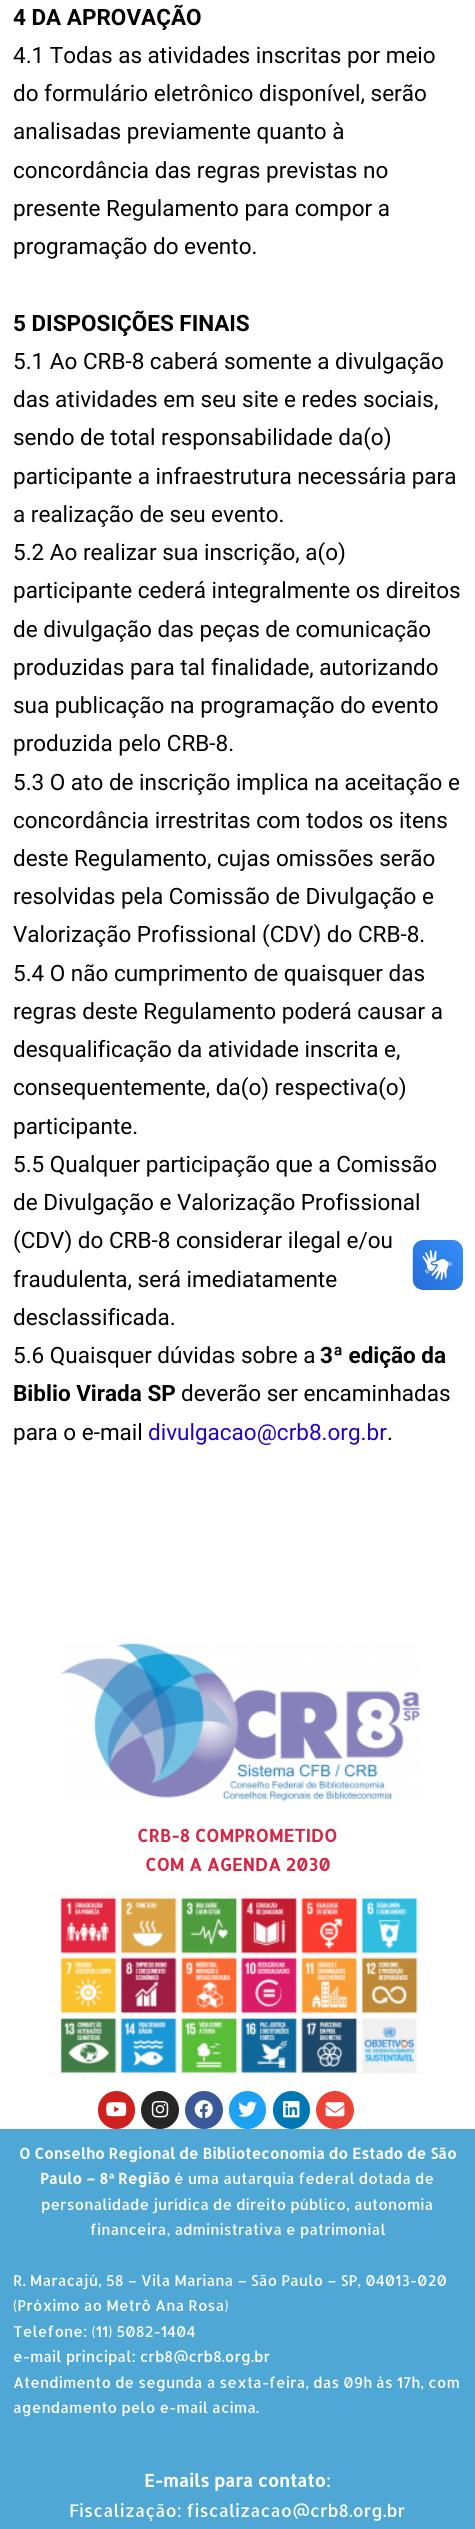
#include <cairo.h>
#include <math.h>
#include <stddef.h>


static void round_rect(cairo_t *cr, double x, double y, double w, double h, double r) {
    cairo_new_sub_path(cr);
    cairo_arc(cr, x + w - r, y + h - r, r, 0, M_PI / 2);
    cairo_arc(cr, x + r, y + h - r, r, M_PI / 2, M_PI);
    cairo_arc(cr, x + r, y + r, r, M_PI, 1.5 * M_PI);
    cairo_arc(cr, x + w - r, y + r, r, 1.5 * M_PI, 2 * M_PI);
    cairo_close_path(cr);
}

static void picture(cairo_t *cr, const char *path, double x, double y, double w, double h) {
    cairo_surface_t *image = cairo_image_surface_create_from_png(path);
    cairo_save(cr);
    cairo_set_source_surface(cr, image, x, y);
    cairo_rectangle(cr, x, y, w, h);
    cairo_fill(cr);
    cairo_restore(cr);
    cairo_surface_destroy(image);
}

int main(void) {
    cairo_surface_t *surface = cairo_image_surface_create(CAIRO_FORMAT_RGB24, 475, 2529);
    cairo_t *cr = cairo_create(surface);
    cairo_font_options_t *options = cairo_font_options_create();
    cairo_font_options_set_hint_metrics(options, CAIRO_HINT_METRICS_OFF);
    cairo_font_options_set_hint_style(options, CAIRO_HINT_STYLE_NONE);
    cairo_set_font_options(cr, options);
    cairo_set_miter_limit(cr, 4);
    cairo_set_source_rgb(cr, 1, 1, 1);
    cairo_paint(cr);
    cairo_select_font_face(cr, "Roboto", CAIRO_FONT_SLANT_NORMAL, CAIRO_FONT_WEIGHT_BOLD);
    cairo_set_font_size(cr, 22.5);
    cairo_set_source_rgb(cr, 0.02, 0, 0);
    cairo_move_to(cr, 13, 25);
    cairo_show_text(cr, "4 DA APROVAÇÃO");
    cairo_select_font_face(cr, "Roboto", CAIRO_FONT_SLANT_NORMAL, CAIRO_FONT_WEIGHT_NORMAL);
    cairo_move_to(cr, 13, 63);
    cairo_show_text(cr, "4.1 Todas as atividades inscritas por meio");
    cairo_move_to(cr, 13, 101);
    cairo_show_text(cr, "do formulário eletrônico disponível, serão");
    cairo_move_to(cr, 13, 139);
    cairo_show_text(cr, "analisadas previamente quanto à");
    cairo_move_to(cr, 13, 178);
    cairo_show_text(cr, "concordância das regras previstas no");
    cairo_move_to(cr, 13, 216);
    cairo_show_text(cr, "presente Regulamento para compor a");
    cairo_move_to(cr, 13, 254);
    cairo_show_text(cr, "programação do evento.");
    cairo_select_font_face(cr, "Roboto", CAIRO_FONT_SLANT_NORMAL, CAIRO_FONT_WEIGHT_BOLD);
    cairo_move_to(cr, 13, 331);
    cairo_show_text(cr, "5 DISPOSIÇÕES FINAIS");
    cairo_select_font_face(cr, "Roboto", CAIRO_FONT_SLANT_NORMAL, CAIRO_FONT_WEIGHT_NORMAL);
    cairo_move_to(cr, 13, 369);
    cairo_show_text(cr, "5.1 Ao CRB-8 caberá somente a divulgação");
    cairo_move_to(cr, 13, 407);
    cairo_show_text(cr, "das atividades em seu site e redes sociais,");
    cairo_move_to(cr, 13, 445);
    cairo_show_text(cr, "sendo de total responsabilidade da(o)");
    cairo_move_to(cr, 13, 484);
    cairo_show_text(cr, "participante a infraestrutura necessária para");
    cairo_move_to(cr, 13, 522);
    cairo_show_text(cr, "a realização de seu evento.");
    cairo_move_to(cr, 13, 560);
    cairo_show_text(cr, "5.2 Ao realizar sua inscrição, a(o)");
    cairo_move_to(cr, 13, 598);
    cairo_show_text(cr, "participante cederá integralmente os direitos");
    cairo_move_to(cr, 13, 637);
    cairo_show_text(cr, "de divulgação das peças de comunicação");
    cairo_move_to(cr, 13, 675);
    cairo_show_text(cr, "produzidas para tal finalidade, autorizando");
    cairo_move_to(cr, 13, 713);
    cairo_show_text(cr, "sua publicação na programação do evento");
    cairo_move_to(cr, 13, 751);
    cairo_show_text(cr, "produzida pelo CRB-8.");
    cairo_move_to(cr, 13, 790);
    cairo_show_text(cr, "5.3 O ato de inscrição implica na aceitação e");
    cairo_move_to(cr, 13, 828);
    cairo_show_text(cr, "concordância irrestritas com todos os itens");
    cairo_move_to(cr, 13, 866);
    cairo_show_text(cr, "deste Regulamento, cujas omissões serão");
    cairo_move_to(cr, 13, 904);
    cairo_show_text(cr, "resolvidas pela Comissão de Divulgação e");
    cairo_move_to(cr, 13, 942);
    cairo_show_text(cr, "Valorização Profissional (CDV) do CRB-8.");
    cairo_move_to(cr, 13, 981);
    cairo_show_text(cr, "5.4 O não cumprimento de quaisquer das");
    cairo_move_to(cr, 13, 1019);
    cairo_show_text(cr, "regras deste Regulamento poderá causar a");
    cairo_move_to(cr, 13, 1057);
    cairo_show_text(cr, "desqualificação da atividade inscrita e,");
    cairo_move_to(cr, 13, 1095);
    cairo_show_text(cr, "consequentemente, da(o) respectiva(o)");
    cairo_move_to(cr, 13, 1134);
    cairo_show_text(cr, "participante.");
    cairo_move_to(cr, 13, 1172);
    cairo_show_text(cr, "5.5 Qualquer participação que a Comissão");
    cairo_move_to(cr, 13, 1210);
    cairo_show_text(cr, "de Divulgação e Valorização Profissional");
    cairo_move_to(cr, 13, 1248);
    cairo_show_text(cr, "(CDV) do CRB-8 considerar ilegal e/ou");
    cairo_move_to(cr, 13, 1287);
    cairo_show_text(cr, "fraudulenta, será imediatamente");
    cairo_move_to(cr, 13, 1325);
    cairo_show_text(cr, "desclassificada.");
    cairo_move_to(cr, 13, 1363);
    cairo_show_text(cr, "5.6 Quaisquer dúvidas sobre a");
    cairo_select_font_face(cr, "Roboto", CAIRO_FONT_SLANT_NORMAL, CAIRO_FONT_WEIGHT_BOLD);
    cairo_move_to(cr, 320, 1363);
    cairo_show_text(cr, "3ª edição da");
    cairo_move_to(cr, 13, 1401);
    cairo_show_text(cr, "Biblio Virada SP");
    cairo_select_font_face(cr, "Roboto", CAIRO_FONT_SLANT_NORMAL, CAIRO_FONT_WEIGHT_NORMAL);
    cairo_move_to(cr, 181, 1401);
    cairo_show_text(cr, "deverão ser encaminhadas");
    cairo_move_to(cr, 13, 1440);
    cairo_show_text(cr, "para o e-mail");
    cairo_set_source_rgb(cr, 0.145, 0.004, 0.761);
    cairo_move_to(cr, 148, 1440);
    cairo_show_text(cr, "divulgacao@crb8.org.br");
    cairo_set_source_rgb(cr, 0.02, 0, 0);
    cairo_move_to(cr, 387, 1440);
    cairo_show_text(cr, ".");
    picture(cr, "img1.png", 60, 1643, 361, 159);
    cairo_select_font_face(cr, "Allerta", CAIRO_FONT_SLANT_NORMAL, CAIRO_FONT_WEIGHT_BOLD);
    cairo_set_font_size(cr, 17.5);
    cairo_set_source_rgb(cr, 0.839, 0.157, 0.275);
    cairo_move_to(cr, 137, 1842);
    cairo_show_text(cr, "CRB-8 COMPROMETIDO");
    cairo_move_to(cr, 145, 1871);
    cairo_show_text(cr, "COM A AGENDA 2030");
    picture(cr, "img2.png", 50, 1893, 375, 186);
    cairo_set_source_rgb(cr, 0.804, 0.125, 0.122);
    round_rect(cr, 98, 2091, 37, 38, 18.5);
    cairo_fill(cr);
    picture(cr, "img3.png", 106, 2102, 21, 15);
    cairo_set_source_rgb(cr, 0.149, 0.149, 0.149);
    cairo_arc(cr, 160, 2110, 19, 0, 2 * M_PI);
    cairo_fill(cr);
    picture(cr, "img4.png", 151, 2101, 18, 17);
    cairo_set_source_rgb(cr, 0.231, 0.349, 0.596);
    cairo_arc(cr, 204, 2110, 19, 0, 2 * M_PI);
    cairo_fill(cr);
    picture(cr, "img5.png", 194, 2100, 19, 19);
    cairo_set_source_rgb(cr, 0.114, 0.631, 0.949);
    round_rect(cr, 229, 2091, 37, 38, 18.5);
    cairo_fill(cr);
    picture(cr, "img6.png", 238, 2101, 19, 16);
    cairo_set_source_rgb(cr, 0, 0.467, 0.71);
    round_rect(cr, 273, 2091, 37, 38, 18.5);
    cairo_fill(cr);
    picture(cr, "img7.png", 283, 2101, 17, 17);
    cairo_set_source_rgb(cr, 0.918, 0.263, 0.208);
    cairo_arc(cr, 335, 2110, 19, 0, 2 * M_PI);
    cairo_fill(cr);
    picture(cr, "img8.png", 325, 2102, 20, 15);
    cairo_set_source_rgb(cr, 0.306, 0.655, 0.835);
    cairo_rectangle(cr, 0, 2129, 475, 400);
    cairo_fill(cr);
    cairo_set_font_size(cr, 15);
    cairo_set_source_rgb(cr, 1, 1, 1);
    cairo_move_to(cr, 19, 2159);
    cairo_show_text(cr, "O Conselho Regional de Biblioteconomia do Estado de São");
    cairo_move_to(cr, 40, 2184);
    cairo_show_text(cr, "Paulo – 8");
    cairo_select_font_face(cr, "Liberation Sans", CAIRO_FONT_SLANT_NORMAL, CAIRO_FONT_WEIGHT_BOLD);
    cairo_move_to(cr, 109, 2184);
    cairo_show_text(cr, "ª");
    cairo_select_font_face(cr, "Allerta", CAIRO_FONT_SLANT_NORMAL, CAIRO_FONT_WEIGHT_BOLD);
    cairo_move_to(cr, 118, 2184);
    cairo_show_text(cr, "Região");
    cairo_select_font_face(cr, "Allerta", CAIRO_FONT_SLANT_NORMAL, CAIRO_FONT_WEIGHT_NORMAL);
    cairo_move_to(cr, 174, 2184);
    cairo_show_text(cr, "é uma autarquia federal dotada de");
    cairo_move_to(cr, 41, 2210);
    cairo_show_text(cr, "personalidade jurídica de direito público, autonomia");
    cairo_move_to(cr, 90, 2235);
    cairo_show_text(cr, "financeira, administrativa e patrimonial");
    cairo_move_to(cr, 13, 2286);
    cairo_show_text(cr, "R. Maracajú, 58 – Vila Mariana – São Paulo – SP, 04013-020");
    cairo_move_to(cr, 13, 2311);
    cairo_show_text(cr, "(Próximo ao Metrô Ana Rosa)");
    cairo_move_to(cr, 13, 2337);
    cairo_show_text(cr, "Telefone: (11) 5082-1404");
    cairo_move_to(cr, 13, 2362);
    cairo_show_text(cr, "e-mail principal: crb8@crb8.org.br");
    cairo_move_to(cr, 13, 2388);
    cairo_show_text(cr, "Atendimento de segunda a sexta-feira, das 09h às 17h, com");
    cairo_move_to(cr, 13, 2413);
    cairo_show_text(cr, "agendamento pelo e-mail acima.");
    cairo_select_font_face(cr, "Allerta", CAIRO_FONT_SLANT_NORMAL, CAIRO_FONT_WEIGHT_BOLD);
    cairo_set_font_size(cr, 17.5);
    cairo_move_to(cr, 144, 2487);
    cairo_show_text(cr, "E-mails para contato");
    cairo_select_font_face(cr, "Allerta", CAIRO_FONT_SLANT_NORMAL, CAIRO_FONT_WEIGHT_NORMAL);
    cairo_move_to(cr, 326, 2487);
    cairo_show_text(cr, ":");
    cairo_move_to(cr, 69, 2517);
    cairo_show_text(cr, "Fiscalização: fiscalizacao@crb8.org.br");
    picture(cr, "img9.png", 412, 1240, 51, 50);
    picture(cr, "img10.png", 413, 1240, 50, 50);
    cairo_surface_write_to_png(surface, "page.png");
    cairo_font_options_destroy(options);
    cairo_destroy(cr);
    cairo_surface_destroy(surface);
    return 0;
}
